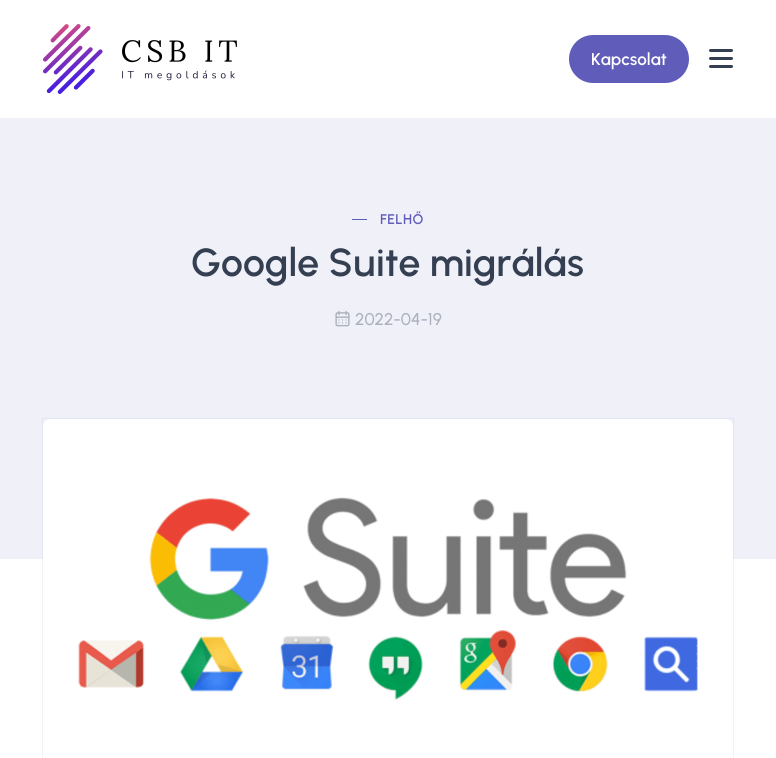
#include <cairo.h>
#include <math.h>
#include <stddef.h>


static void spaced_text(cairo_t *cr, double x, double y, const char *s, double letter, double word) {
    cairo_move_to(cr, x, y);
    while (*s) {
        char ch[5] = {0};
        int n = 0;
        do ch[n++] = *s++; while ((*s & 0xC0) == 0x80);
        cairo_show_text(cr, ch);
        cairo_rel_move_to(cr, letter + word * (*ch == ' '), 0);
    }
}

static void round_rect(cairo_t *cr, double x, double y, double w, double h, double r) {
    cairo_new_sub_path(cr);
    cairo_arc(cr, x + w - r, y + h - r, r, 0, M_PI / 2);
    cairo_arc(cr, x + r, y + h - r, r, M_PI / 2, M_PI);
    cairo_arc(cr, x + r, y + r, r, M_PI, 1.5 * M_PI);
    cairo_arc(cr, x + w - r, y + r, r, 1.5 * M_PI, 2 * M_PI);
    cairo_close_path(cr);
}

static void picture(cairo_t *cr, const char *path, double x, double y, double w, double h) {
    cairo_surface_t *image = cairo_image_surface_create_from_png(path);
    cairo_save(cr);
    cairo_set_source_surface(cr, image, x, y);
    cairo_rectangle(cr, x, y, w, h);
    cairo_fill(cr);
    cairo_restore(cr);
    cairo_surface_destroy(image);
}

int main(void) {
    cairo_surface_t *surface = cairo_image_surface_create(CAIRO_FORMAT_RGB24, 776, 758);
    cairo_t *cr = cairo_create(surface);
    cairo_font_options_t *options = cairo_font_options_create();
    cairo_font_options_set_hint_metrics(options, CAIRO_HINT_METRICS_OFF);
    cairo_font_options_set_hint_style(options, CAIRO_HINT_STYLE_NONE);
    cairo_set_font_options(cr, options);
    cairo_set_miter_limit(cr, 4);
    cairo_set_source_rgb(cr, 1, 1, 1);
    cairo_paint(cr);
    picture(cr, "img1.png", 43, 24, 194, 70);
    cairo_set_source_rgb(cr, 0.376, 0.365, 0.729);
    round_rect(cr, 570, 36, 118, 46, 23);
    cairo_fill_preserve(cr);
    cairo_stroke(cr);
    cairo_select_font_face(cr, "Urbanist SemiBold", CAIRO_FONT_SLANT_NORMAL, CAIRO_FONT_WEIGHT_NORMAL);
    cairo_set_font_size(cr, 17);
    cairo_set_source_rgb(cr, 1, 1, 1);
    cairo_move_to(cr, 591, 65);
    cairo_show_text(cr, "Kapcsolat");
    cairo_set_source_rgb(cr, 0.204, 0.247, 0.322);
    round_rect(cr, 709, 49, 24, 3, 1.5);
    cairo_fill(cr);
    round_rect(cr, 709, 57, 24, 3, 1.5);
    cairo_fill(cr);
    round_rect(cr, 709, 65, 24, 3, 1.5);
    cairo_fill(cr);
    cairo_set_source_rgb(cr, 0.941, 0.941, 0.973);
    cairo_rectangle(cr, 0, 118, 776, 441);
    cairo_fill(cr);
    cairo_set_source_rgb(cr, 0.376, 0.365, 0.729);
    cairo_rectangle(cr, 352, 219, 15, 1);
    cairo_fill(cr);
    cairo_set_font_size(cr, 14);
    spaced_text(cr, 380, 224, "FELHŐ", 0.5, 0);
    cairo_set_font_size(cr, 39.1);
    cairo_set_source_rgb(cr, 0.204, 0.247, 0.322);
    cairo_move_to(cr, 191, 276);
    cairo_show_text(cr, "Google Suite migrálás");
    picture(cr, "img2.png", 335, 310, 15, 17);
    cairo_select_font_face(cr, "Urbanist Medium", CAIRO_FONT_SLANT_NORMAL, CAIRO_FONT_WEIGHT_NORMAL);
    cairo_set_font_size(cr, 17);
    cairo_set_source_rgb(cr, 0.667, 0.69, 0.737);
    cairo_move_to(cr, 355, 325);
    cairo_show_text(cr, "2022-04-19");
    cairo_rectangle(cr, 42.5, 418.5, 691, 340);
    cairo_set_source_rgba(cr, 0.031, 0.235, 0.51, 0.06);
    cairo_set_line_width(cr, 1);
    cairo_stroke(cr);
    cairo_set_source_rgb(cr, 1, 1, 1);
    round_rect(cr, 43, 419, 690, 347, 8);
    cairo_fill(cr);
    picture(cr, "img3.png", 43, 419, 690, 281);
    cairo_surface_write_to_png(surface, "page.png");
    cairo_font_options_destroy(options);
    cairo_destroy(cr);
    cairo_surface_destroy(surface);
    return 0;
}
